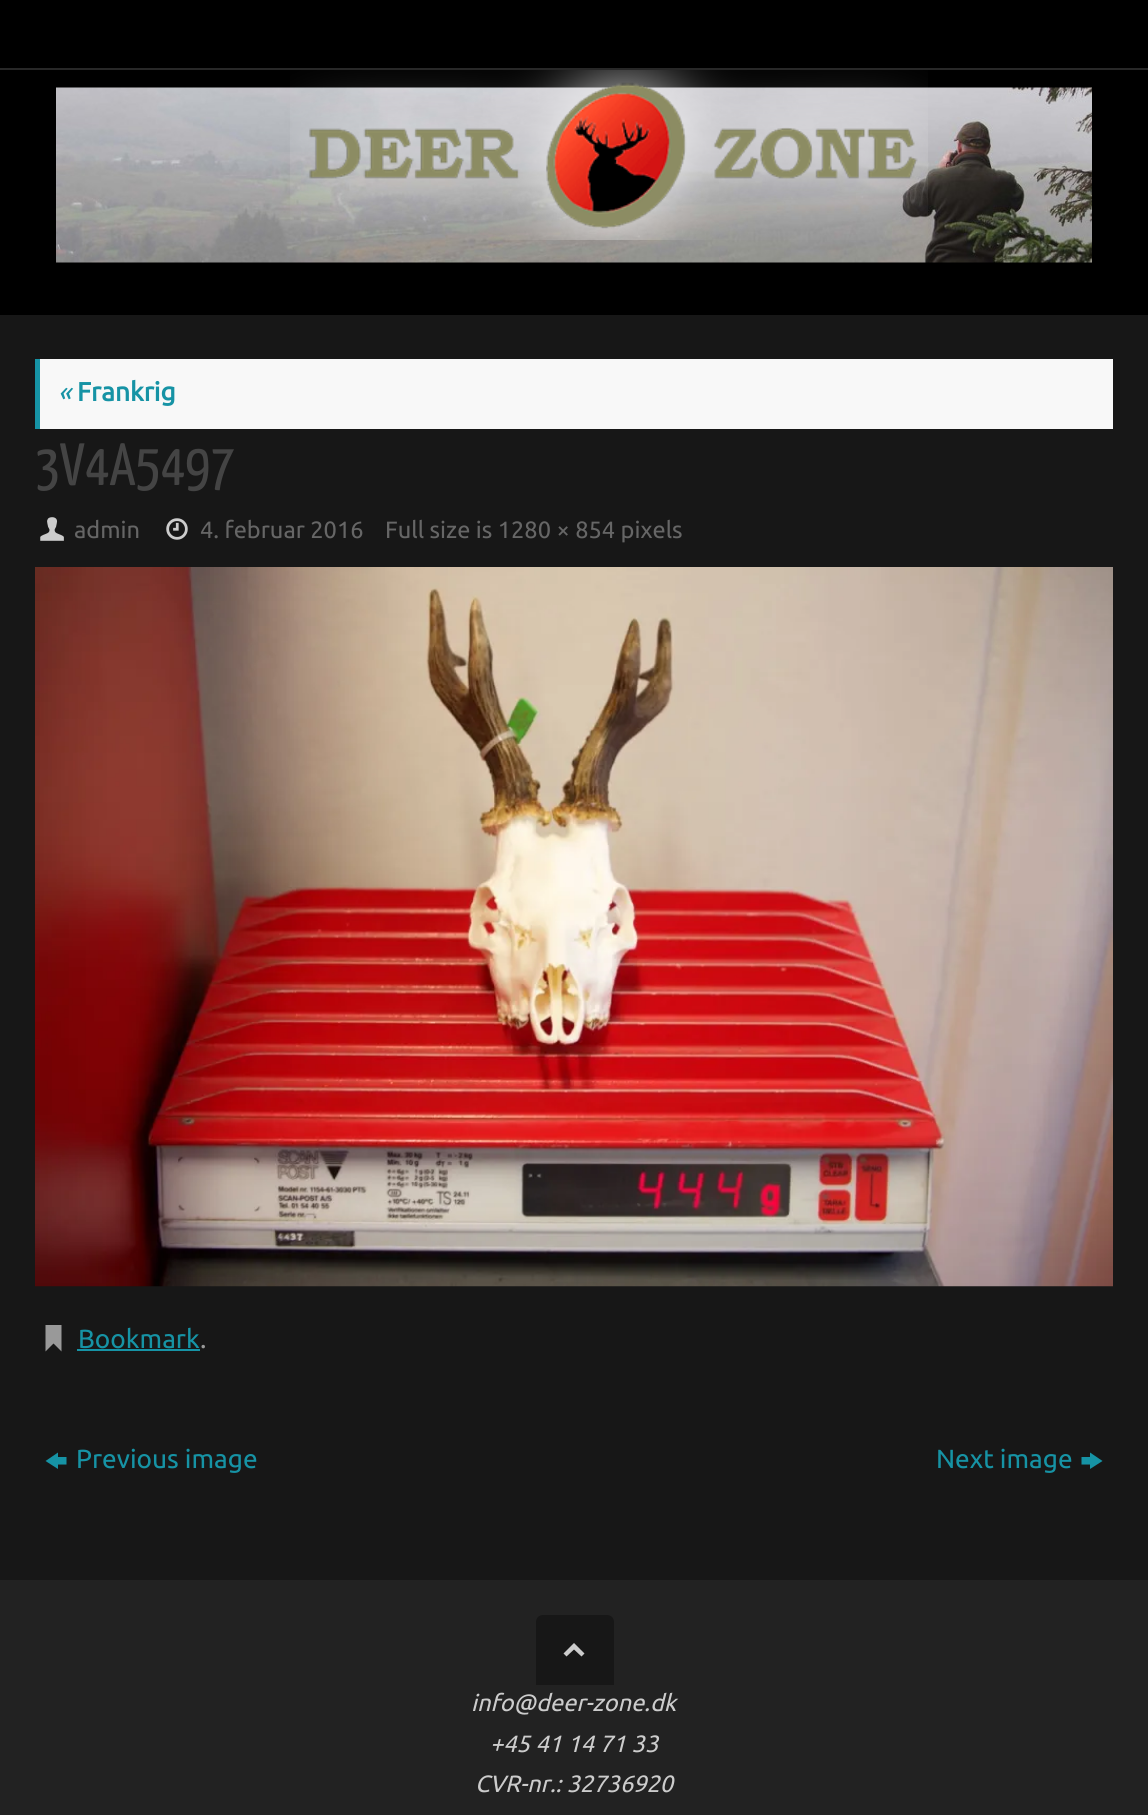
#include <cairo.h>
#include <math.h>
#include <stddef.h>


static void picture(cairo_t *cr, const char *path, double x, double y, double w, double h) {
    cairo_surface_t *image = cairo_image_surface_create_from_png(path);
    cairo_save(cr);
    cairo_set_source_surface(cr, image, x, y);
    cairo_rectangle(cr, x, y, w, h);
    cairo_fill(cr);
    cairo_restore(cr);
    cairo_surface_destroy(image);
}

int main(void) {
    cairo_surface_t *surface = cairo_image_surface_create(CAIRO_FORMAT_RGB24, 1148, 1815);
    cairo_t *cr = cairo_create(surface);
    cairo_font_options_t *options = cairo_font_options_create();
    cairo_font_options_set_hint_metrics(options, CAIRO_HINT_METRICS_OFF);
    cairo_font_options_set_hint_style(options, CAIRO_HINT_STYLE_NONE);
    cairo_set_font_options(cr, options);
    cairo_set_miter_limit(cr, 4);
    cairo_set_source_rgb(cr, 0, 0, 0);
    cairo_paint(cr);
    cairo_set_source_rgb(cr, 0.157, 0.157, 0.157);
    cairo_rectangle(cr, 0, 68, 1148, 2);
    cairo_fill(cr);
    picture(cr, "img2.png", 56, 87, 1036, 176);
    picture(cr, "img1.png", 290, 70, 638, 170);
    cairo_set_source_rgb(cr, 0.09, 0.09, 0.09);
    cairo_rectangle(cr, 0, 315, 1148, 1265);
    cairo_fill(cr);
    cairo_set_source_rgb(cr, 0.969, 0.969, 0.969);
    cairo_rectangle(cr, 40, 359, 1073, 70);
    cairo_fill(cr);
    cairo_set_source_rgb(cr, 0.086, 0.576, 0.647);
    cairo_rectangle(cr, 35, 359, 5, 70);
    cairo_fill(cr);
    cairo_select_font_face(cr, "Ubuntu", CAIRO_FONT_SLANT_ITALIC, CAIRO_FONT_WEIGHT_NORMAL);
    cairo_set_font_size(cr, 26.25);
    cairo_move_to(cr, 58, 401);
    cairo_show_text(cr, "«");
    cairo_select_font_face(cr, "Ubuntu", CAIRO_FONT_SLANT_NORMAL, CAIRO_FONT_WEIGHT_BOLD);
    cairo_move_to(cr, 77, 401);
    cairo_show_text(cr, "Frankrig");
    cairo_select_font_face(cr, "Yanone Kaffeesatz", CAIRO_FONT_SLANT_NORMAL, CAIRO_FONT_WEIGHT_NORMAL);
    cairo_set_font_size(cr, 59.5);
    cairo_set_source_rgb(cr, 0.267, 0.267, 0.267);
    cairo_move_to(cr, 35, 485);
    cairo_show_text(cr, "3V4A5497");
    picture(cr, "img3.png", 40, 517, 24, 24);
    cairo_select_font_face(cr, "Ubuntu", CAIRO_FONT_SLANT_NORMAL, CAIRO_FONT_WEIGHT_NORMAL);
    cairo_set_font_size(cr, 23.6);
    cairo_set_source_rgb(cr, 0.4, 0.4, 0.4);
    cairo_move_to(cr, 74, 538);
    cairo_show_text(cr, "admin");
    picture(cr, "img4.png", 166, 518, 22, 22);
    cairo_move_to(cr, 200, 538);
    cairo_show_text(cr, "4. februar 2016");
    cairo_move_to(cr, 385, 538);
    cairo_show_text(cr, "Full size is 1280 × 854 pixels");
    picture(cr, "img5.png", 35, 567, 1078, 720);
    cairo_set_source_rgb(cr, 0.6, 0.6, 0.6);
    cairo_new_path(cr);
    cairo_move_to(cr, 45.5, 1349);
    cairo_line_to(cr, 45.5, 1325);
    cairo_line_to(cr, 61.5, 1325);
    cairo_line_to(cr, 61.5, 1351.5);
    cairo_line_to(cr, 53.5, 1343.5);
    cairo_line_to(cr, 45.5, 1351.5);
    cairo_close_path(cr);
    cairo_fill(cr);
    cairo_set_font_size(cr, 26.25);
    cairo_set_source_rgb(cr, 0.086, 0.576, 0.647);
    cairo_move_to(cr, 78, 1348);
    cairo_show_text(cr, "Bookmark");
    cairo_rectangle(cr, 77, 1349, 123, 2);
    cairo_fill(cr);
    cairo_set_source_rgb(cr, 0.6, 0.6, 0.6);
    cairo_move_to(cr, 200, 1348);
    cairo_show_text(cr, ".");
    cairo_set_source_rgb(cr, 0.086, 0.576, 0.647);
    cairo_new_path(cr);
    cairo_move_to(cr, 45.5, 1461);
    cairo_line_to(cr, 58, 1452.5);
    cairo_line_to(cr, 58, 1457);
    cairo_line_to(cr, 66.5, 1457);
    cairo_line_to(cr, 66.5, 1464.5);
    cairo_line_to(cr, 58, 1464.5);
    cairo_line_to(cr, 58, 1469);
    cairo_close_path(cr);
    cairo_fill(cr);
    cairo_move_to(cr, 76, 1468);
    cairo_show_text(cr, "Previous image");
    cairo_move_to(cr, 936, 1468);
    cairo_show_text(cr, "Next image");
    cairo_new_path(cr);
    cairo_move_to(cr, 1081.5, 1464.5);
    cairo_line_to(cr, 1081.5, 1457);
    cairo_line_to(cr, 1090, 1457);
    cairo_line_to(cr, 1090, 1452.5);
    cairo_line_to(cr, 1102.5, 1461);
    cairo_line_to(cr, 1090, 1469);
    cairo_line_to(cr, 1090, 1464.5);
    cairo_close_path(cr);
    cairo_fill(cr);
    cairo_set_source_rgb(cr, 0.133, 0.133, 0.133);
    cairo_rectangle(cr, 0, 1580, 1148, 235);
    cairo_fill(cr);
    cairo_set_source_rgb(cr, 0.09, 0.09, 0.09);
    cairo_new_path(cr);
    cairo_move_to(cr, 543, 1615);
    cairo_line_to(cr, 607, 1615);
    cairo_curve_to(cr, 611, 1615, 614, 1618, 614, 1622);
    cairo_line_to(cr, 614, 1685);
    cairo_line_to(cr, 536, 1685);
    cairo_line_to(cr, 536, 1622);
    cairo_curve_to(cr, 536, 1618, 539, 1615, 543, 1615);
    cairo_close_path(cr);
    cairo_fill(cr);
    cairo_set_source_rgb(cr, 0.8, 0.8, 0.8);
    cairo_new_path(cr);
    cairo_move_to(cr, 563.5, 1653.5);
    cairo_line_to(cr, 574, 1643);
    cairo_line_to(cr, 584.5, 1653.5);
    cairo_line_to(cr, 581.5, 1656.5);
    cairo_line_to(cr, 574, 1649.5);
    cairo_line_to(cr, 566.5, 1656.5);
    cairo_close_path(cr);
    cairo_fill(cr);
    cairo_select_font_face(cr, "Ubuntu", CAIRO_FONT_SLANT_ITALIC, CAIRO_FONT_WEIGHT_NORMAL);
    cairo_set_font_size(cr, 23.6);
    cairo_move_to(cr, 471, 1711);
    cairo_show_text(cr, "info@deer-zone.dk");
    cairo_move_to(cr, 490, 1752);
    cairo_show_text(cr, "+45 41 14 71 33");
    cairo_move_to(cr, 475, 1792);
    cairo_show_text(cr, "CVR-nr.: 32736920");
    cairo_surface_write_to_png(surface, "page.png");
    cairo_font_options_destroy(options);
    cairo_destroy(cr);
    cairo_surface_destroy(surface);
    return 0;
}
